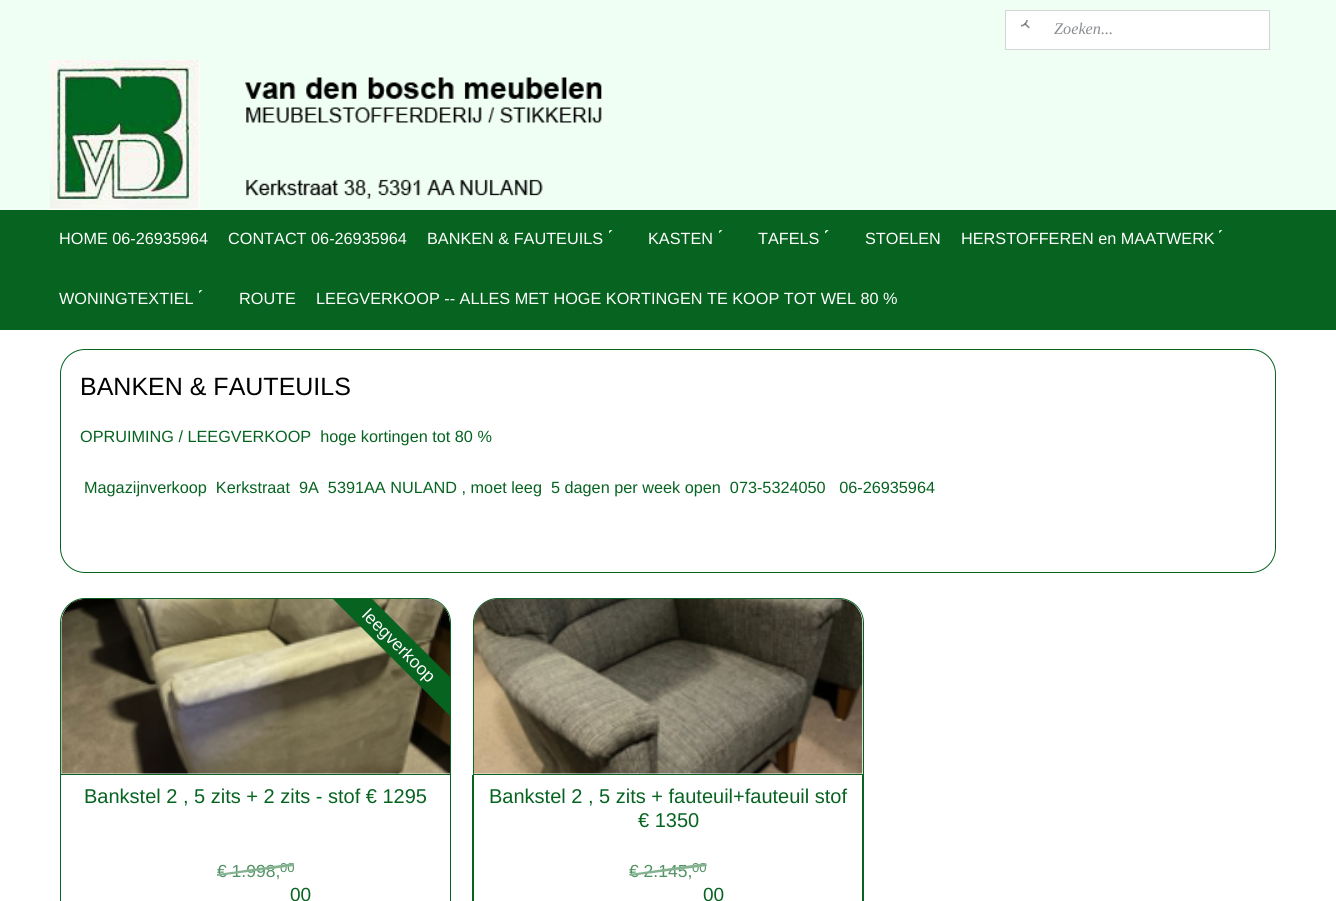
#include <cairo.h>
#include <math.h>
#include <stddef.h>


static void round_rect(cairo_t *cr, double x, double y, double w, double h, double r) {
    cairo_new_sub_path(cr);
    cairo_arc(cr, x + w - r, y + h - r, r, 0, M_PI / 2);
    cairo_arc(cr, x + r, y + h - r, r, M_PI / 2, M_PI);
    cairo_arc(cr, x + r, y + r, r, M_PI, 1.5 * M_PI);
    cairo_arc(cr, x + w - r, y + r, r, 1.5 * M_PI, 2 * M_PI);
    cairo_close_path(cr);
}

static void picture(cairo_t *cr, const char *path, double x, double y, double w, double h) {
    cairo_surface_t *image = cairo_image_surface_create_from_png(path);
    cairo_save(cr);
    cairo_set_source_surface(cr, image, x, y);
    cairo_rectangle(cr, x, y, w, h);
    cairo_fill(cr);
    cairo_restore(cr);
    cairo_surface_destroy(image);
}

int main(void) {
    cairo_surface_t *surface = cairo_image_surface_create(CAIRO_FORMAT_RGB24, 1336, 901);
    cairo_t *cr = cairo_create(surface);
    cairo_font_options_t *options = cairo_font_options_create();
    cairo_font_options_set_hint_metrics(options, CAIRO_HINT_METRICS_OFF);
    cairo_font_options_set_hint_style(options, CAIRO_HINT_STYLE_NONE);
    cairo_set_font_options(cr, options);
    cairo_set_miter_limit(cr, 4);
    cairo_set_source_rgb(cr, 1, 1, 1);
    cairo_paint(cr);
    cairo_set_source_rgb(cr, 0.941, 1, 0.957);
    cairo_rectangle(cr, 0, 0, 1336, 210);
    cairo_fill(cr);
    cairo_set_source_rgb(cr, 1, 1, 1);
    cairo_rectangle(cr, 1005.5, 10.5, 264, 39);
    cairo_fill_preserve(cr);
    cairo_set_source_rgb(cr, 0.827, 0.835, 0.851);
    cairo_set_line_width(cr, 1);
    cairo_stroke(cr);
    picture(cr, "img1.png", 1021, 20, 9, 9);
    cairo_select_font_face(cr, "Liberation Serif", CAIRO_FONT_SLANT_ITALIC, CAIRO_FONT_WEIGHT_NORMAL);
    cairo_set_font_size(cr, 16.25);
    cairo_set_source_rgb(cr, 0.537, 0.549, 0.569);
    cairo_move_to(cr, 1054, 34);
    cairo_show_text(cr, "Zoeken...");
    picture(cr, "img2.png", 50, 60, 552, 150);
    cairo_set_source_rgb(cr, 0.024, 0.388, 0.125);
    cairo_rectangle(cr, 0, 210, 1336, 120);
    cairo_fill(cr);
    cairo_select_font_face(cr, "Liberation Sans", CAIRO_FONT_SLANT_NORMAL, CAIRO_FONT_WEIGHT_NORMAL);
    cairo_set_source_rgb(cr, 1, 1, 1);
    cairo_move_to(cr, 59, 244);
    cairo_show_text(cr, "HOME 06-26935964");
    cairo_move_to(cr, 228, 244);
    cairo_show_text(cr, "CONTACT 06-26935964");
    cairo_move_to(cr, 427, 244);
    cairo_show_text(cr, "BANKEN & FAUTEUILS");
    picture(cr, "img3.png", 609, 230, 4, 4);
    cairo_move_to(cr, 648, 244);
    cairo_show_text(cr, "KASTEN");
    picture(cr, "img3.png", 719, 230, 4, 4);
    cairo_move_to(cr, 758, 244);
    cairo_show_text(cr, "TAFELS");
    picture(cr, "img4.png", 825, 230, 4, 4);
    cairo_move_to(cr, 865, 244);
    cairo_show_text(cr, "STOELEN");
    cairo_move_to(cr, 961, 244);
    cairo_show_text(cr, "HERSTOFFEREN en MAATWERK");
    picture(cr, "img3.png", 1219, 230, 4, 4);
    cairo_move_to(cr, 59, 304);
    cairo_show_text(cr, "WONINGTEXTIEL");
    picture(cr, "img3.png", 199, 290, 4, 4);
    cairo_move_to(cr, 239, 304);
    cairo_show_text(cr, "ROUTE");
    cairo_move_to(cr, 316, 304);
    cairo_show_text(cr, "LEEGVERKOOP -- ALLES MET HOGE KORTINGEN TE KOOP TOT WEL 80 %");
    round_rect(cr, 60.5, 349.5, 1215, 223, 24.5);
    cairo_set_source_rgb(cr, 0.024, 0.388, 0.125);
    cairo_stroke(cr);
    cairo_set_font_size(cr, 25);
    cairo_set_source_rgb(cr, 0, 0, 0);
    cairo_move_to(cr, 80, 395);
    cairo_show_text(cr, "BANKEN & FAUTEUILS");
    cairo_set_font_size(cr, 16.25);
    cairo_set_source_rgb(cr, 0.024, 0.388, 0.125);
    cairo_move_to(cr, 80, 442);
    cairo_show_text(cr, "OPRUIMING / LEEGVERKOOP  hoge kortingen tot 80 %");
    cairo_move_to(cr, 84, 493);
    cairo_show_text(cr, "Magazijnverkoop  Kerkstraat  9A  5391AA NULAND , moet leeg  5 dagen per week open  073-5324050   06-26935964");
    cairo_new_path(cr);
    cairo_move_to(cr, 85, 598.5);
    cairo_line_to(cr, 426, 598.5);
    cairo_curve_to(cr, 439.5, 598.5, 450.5, 609.5, 450.5, 623);
    cairo_line_to(cr, 450.5, 774.5);
    cairo_line_to(cr, 60.5, 774.5);
    cairo_line_to(cr, 60.5, 623);
    cairo_curve_to(cr, 60.5, 609.5, 71.5, 598.5, 85, 598.5);
    cairo_close_path(cr);
    cairo_stroke(cr);
    picture(cr, "img5.png", 61, 598, 389, 176);
    cairo_new_path(cr);
    cairo_move_to(cr, 450, 716);
    cairo_line_to(cr, 333, 599);
    cairo_line_to(cr, 372, 599);
    cairo_line_to(cr, 450, 677);
    cairo_close_path(cr);
    cairo_fill(cr);
    cairo_set_font_size(cr, 17.5);
    cairo_set_source_rgb(cr, 1, 1, 1);
    cairo_save(cr);
    cairo_translate(cr, 361, 616);
    cairo_rotate(cr, 45 * M_PI / 180);
    cairo_move_to(cr, 0, 0);
    cairo_show_text(cr, "leegverkoop");
    cairo_restore(cr);
    cairo_set_source_rgb(cr, 0.024, 0.388, 0.125);
    cairo_set_fill_rule(cr, CAIRO_FILL_RULE_EVEN_ODD);
    cairo_new_path(cr);
    cairo_move_to(cr, 60, 775);
    cairo_line_to(cr, 451, 775);
    cairo_line_to(cr, 451, 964);
    cairo_curve_to(cr, 451, 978, 440, 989, 426, 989);
    cairo_line_to(cr, 85, 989);
    cairo_curve_to(cr, 71, 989, 60, 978, 60, 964);
    cairo_close_path(cr);
    cairo_move_to(cr, 61, 775);
    cairo_line_to(cr, 450, 775);
    cairo_line_to(cr, 450, 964);
    cairo_curve_to(cr, 450, 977, 439, 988, 426, 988);
    cairo_line_to(cr, 85, 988);
    cairo_curve_to(cr, 72, 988, 61, 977, 61, 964);
    cairo_close_path(cr);
    cairo_fill(cr);
    cairo_set_font_size(cr, 20);
    cairo_move_to(cr, 84, 803);
    cairo_show_text(cr, "Bankstel 2 , 5 zits + 2 zits - stof € 1295");
    cairo_set_font_size(cr, 13);
    cairo_set_source_rgb(cr, 0.318, 0.573, 0.388);
    cairo_move_to(cr, 280, 872);
    cairo_show_text(cr, "00");
    cairo_set_font_size(cr, 17.5);
    cairo_move_to(cr, 217, 877);
    cairo_show_text(cr, "€ 1.998,");
    cairo_set_source_rgb(cr, 0.522, 0.702, 0.573);
    cairo_set_fill_rule(cr, CAIRO_FILL_RULE_WINDING);
    cairo_new_path(cr);
    cairo_move_to(cr, 217, 874);
    cairo_line_to(cr, 294, 863);
    cairo_line_to(cr, 294, 866);
    cairo_line_to(cr, 217, 876);
    cairo_close_path(cr);
    cairo_fill(cr);
    cairo_set_font_size(cr, 19);
    cairo_set_source_rgb(cr, 0.024, 0.388, 0.125);
    cairo_move_to(cr, 290, 901);
    cairo_show_text(cr, "00");
    cairo_new_path(cr);
    cairo_move_to(cr, 498, 598.5);
    cairo_line_to(cr, 839, 598.5);
    cairo_curve_to(cr, 852.5, 598.5, 863.5, 609.5, 863.5, 623);
    cairo_line_to(cr, 863.5, 774.5);
    cairo_line_to(cr, 473.5, 774.5);
    cairo_line_to(cr, 473.5, 623);
    cairo_curve_to(cr, 473.5, 609.5, 484.5, 598.5, 498, 598.5);
    cairo_close_path(cr);
    cairo_stroke(cr);
    picture(cr, "img6.png", 473, 598, 390, 176);
    cairo_set_fill_rule(cr, CAIRO_FILL_RULE_EVEN_ODD);
    cairo_new_path(cr);
    cairo_move_to(cr, 472, 775);
    cairo_line_to(cr, 864, 775);
    cairo_line_to(cr, 864, 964);
    cairo_curve_to(cr, 864, 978, 853, 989, 839, 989);
    cairo_line_to(cr, 498, 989);
    cairo_curve_to(cr, 484, 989, 472, 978, 472, 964);
    cairo_close_path(cr);
    cairo_move_to(cr, 474, 775);
    cairo_line_to(cr, 862, 775);
    cairo_line_to(cr, 862, 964);
    cairo_curve_to(cr, 862, 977, 852, 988, 839, 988);
    cairo_line_to(cr, 498, 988);
    cairo_curve_to(cr, 484, 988, 474, 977, 474, 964);
    cairo_close_path(cr);
    cairo_fill(cr);
    cairo_set_font_size(cr, 20);
    cairo_move_to(cr, 489, 803);
    cairo_show_text(cr, "Bankstel 2 , 5 zits + fauteuil+fauteuil stof");
    cairo_move_to(cr, 638, 827);
    cairo_show_text(cr, "€ 1350");
    cairo_set_font_size(cr, 13);
    cairo_set_source_rgb(cr, 0.318, 0.573, 0.388);
    cairo_move_to(cr, 692, 872);
    cairo_show_text(cr, "00");
    cairo_set_font_size(cr, 17.5);
    cairo_move_to(cr, 629, 877);
    cairo_show_text(cr, "€ 2.145,");
    cairo_set_source_rgb(cr, 0.522, 0.702, 0.573);
    cairo_set_fill_rule(cr, CAIRO_FILL_RULE_WINDING);
    cairo_new_path(cr);
    cairo_move_to(cr, 629, 874);
    cairo_line_to(cr, 706, 863);
    cairo_line_to(cr, 707, 866);
    cairo_line_to(cr, 630, 876);
    cairo_close_path(cr);
    cairo_fill(cr);
    cairo_set_font_size(cr, 19);
    cairo_set_source_rgb(cr, 0.024, 0.388, 0.125);
    cairo_move_to(cr, 703, 901);
    cairo_show_text(cr, "00");
    cairo_surface_write_to_png(surface, "page.png");
    cairo_font_options_destroy(options);
    cairo_destroy(cr);
    cairo_surface_destroy(surface);
    return 0;
}
